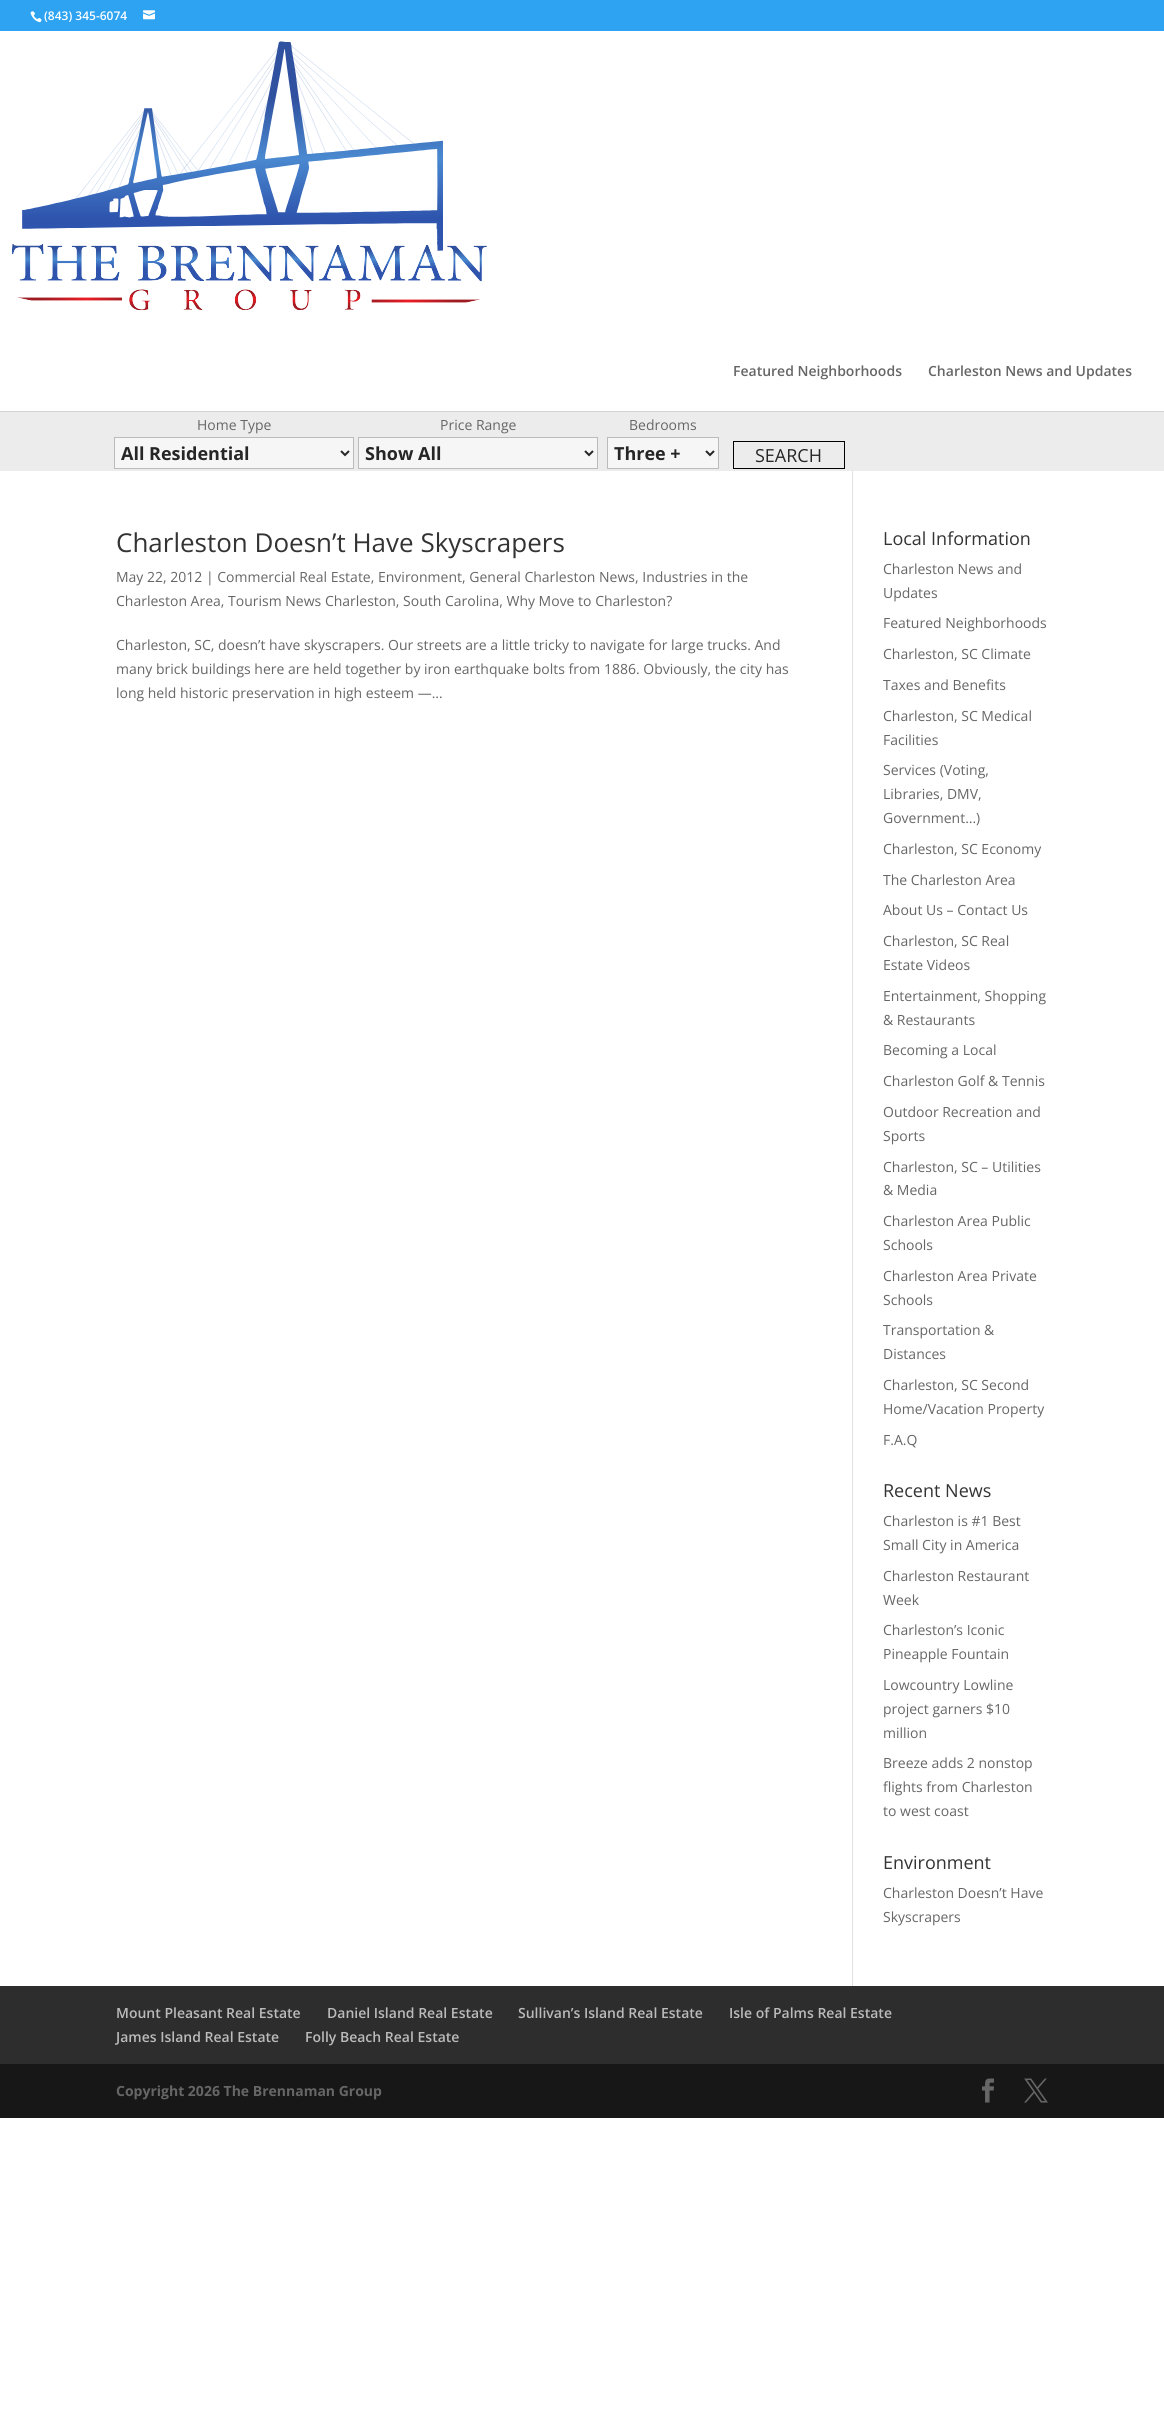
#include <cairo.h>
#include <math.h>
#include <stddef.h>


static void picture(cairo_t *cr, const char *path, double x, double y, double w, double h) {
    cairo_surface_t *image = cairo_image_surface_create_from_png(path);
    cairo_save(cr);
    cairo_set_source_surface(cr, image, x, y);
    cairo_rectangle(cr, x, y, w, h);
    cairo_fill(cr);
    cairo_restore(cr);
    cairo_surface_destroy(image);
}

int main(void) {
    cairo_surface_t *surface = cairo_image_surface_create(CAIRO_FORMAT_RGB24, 1164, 2436);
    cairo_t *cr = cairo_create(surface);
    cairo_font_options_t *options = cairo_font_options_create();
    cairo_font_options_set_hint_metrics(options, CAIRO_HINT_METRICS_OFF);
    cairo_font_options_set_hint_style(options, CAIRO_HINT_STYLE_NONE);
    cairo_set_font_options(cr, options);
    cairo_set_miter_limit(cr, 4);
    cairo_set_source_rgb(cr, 1, 1, 1);
    cairo_paint(cr);
    cairo_set_source_rgb(cr, 0.18, 0.639, 0.949);
    cairo_rectangle(cr, 0, 0, 1164, 31);
    cairo_fill(cr);
    picture(cr, "img1.png", 30, 11, 12, 12);
    cairo_select_font_face(cr, "Open Sans SemiBold", CAIRO_FONT_SLANT_NORMAL, CAIRO_FONT_WEIGHT_NORMAL);
    cairo_set_font_size(cr, 12);
    cairo_set_source_rgb(cr, 1, 1, 1);
    cairo_move_to(cr, 44, 20);
    cairo_show_text(cr, "(843) 345-6074");
    picture(cr, "img2.png", 143, 10, 12, 10);
    cairo_set_source_rgb(cr, 0.831, 0.831, 0.831);
    cairo_rectangle(cr, 0, 411, 1164, 1);
    cairo_fill(cr);
    picture(cr, "img3.png", 11, 41, 476, 270);
    cairo_set_font_size(cr, 14);
    cairo_set_source_rgb(cr, 0.4, 0.4, 0.4);
    cairo_move_to(cr, 733, 376);
    cairo_show_text(cr, "Featured Neighborhoods");
    cairo_move_to(cr, 928, 376);
    cairo_show_text(cr, "Charleston News and Updates");
    cairo_set_source_rgb(cr, 0.922, 0.922, 0.922);
    cairo_rectangle(cr, 0, 412, 1164, 59);
    cairo_fill(cr);
    cairo_select_font_face(cr, "Open Sans", CAIRO_FONT_SLANT_NORMAL, CAIRO_FONT_WEIGHT_NORMAL);
    cairo_set_source_rgb(cr, 0.4, 0.4, 0.4);
    cairo_move_to(cr, 197, 430);
    cairo_show_text(cr, "Home Type");
    cairo_set_source_rgb(cr, 0.961, 0.961, 0.961);
    cairo_rectangle(cr, 114.5, 437.5, 239, 31);
    cairo_fill_preserve(cr);
    cairo_set_source_rgb(cr, 0.733, 0.733, 0.733);
    cairo_set_line_width(cr, 1);
    cairo_stroke(cr);
    cairo_new_path(cr);
    cairo_move_to(cr, 341, 451);
    cairo_line_to(cr, 345, 455);
    cairo_line_to(cr, 349, 451);
    cairo_set_source_rgb(cr, 0.149, 0.149, 0.149);
    cairo_set_line_width(cr, 2);
    cairo_stroke(cr);
    cairo_select_font_face(cr, "Open Sans", CAIRO_FONT_SLANT_NORMAL, CAIRO_FONT_WEIGHT_BOLD);
    cairo_set_font_size(cr, 18);
    cairo_move_to(cr, 121, 460);
    cairo_show_text(cr, "All Residential");
    cairo_select_font_face(cr, "Open Sans", CAIRO_FONT_SLANT_NORMAL, CAIRO_FONT_WEIGHT_NORMAL);
    cairo_set_font_size(cr, 14);
    cairo_set_source_rgb(cr, 0.4, 0.4, 0.4);
    cairo_move_to(cr, 440, 430);
    cairo_show_text(cr, "Price Range");
    cairo_set_source_rgb(cr, 0.961, 0.961, 0.961);
    cairo_rectangle(cr, 358.5, 437.5, 239, 31);
    cairo_fill_preserve(cr);
    cairo_set_source_rgb(cr, 0.733, 0.733, 0.733);
    cairo_set_line_width(cr, 1);
    cairo_stroke(cr);
    cairo_new_path(cr);
    cairo_move_to(cr, 585, 451);
    cairo_line_to(cr, 589, 455);
    cairo_line_to(cr, 593, 451);
    cairo_set_source_rgb(cr, 0.149, 0.149, 0.149);
    cairo_set_line_width(cr, 2);
    cairo_stroke(cr);
    cairo_select_font_face(cr, "Open Sans", CAIRO_FONT_SLANT_NORMAL, CAIRO_FONT_WEIGHT_BOLD);
    cairo_set_font_size(cr, 18);
    cairo_move_to(cr, 365, 460);
    cairo_show_text(cr, "Show All");
    cairo_select_font_face(cr, "Open Sans", CAIRO_FONT_SLANT_NORMAL, CAIRO_FONT_WEIGHT_NORMAL);
    cairo_set_font_size(cr, 14);
    cairo_set_source_rgb(cr, 0.4, 0.4, 0.4);
    cairo_move_to(cr, 629, 430);
    cairo_show_text(cr, "Bedrooms");
    cairo_set_source_rgb(cr, 0.961, 0.961, 0.961);
    cairo_rectangle(cr, 607.5, 437.5, 111, 31);
    cairo_fill_preserve(cr);
    cairo_set_source_rgb(cr, 0.733, 0.733, 0.733);
    cairo_set_line_width(cr, 1);
    cairo_stroke(cr);
    cairo_new_path(cr);
    cairo_move_to(cr, 706, 451);
    cairo_line_to(cr, 710, 455);
    cairo_line_to(cr, 714, 451);
    cairo_set_source_rgb(cr, 0.149, 0.149, 0.149);
    cairo_set_line_width(cr, 2);
    cairo_stroke(cr);
    cairo_select_font_face(cr, "Open Sans", CAIRO_FONT_SLANT_NORMAL, CAIRO_FONT_WEIGHT_BOLD);
    cairo_set_font_size(cr, 18);
    cairo_move_to(cr, 614, 460);
    cairo_show_text(cr, "Three +");
    cairo_rectangle(cr, 733.5, 441.5, 111, 27);
    cairo_set_source_rgb(cr, 0, 0, 0);
    cairo_set_line_width(cr, 1);
    cairo_stroke(cr);
    cairo_select_font_face(cr, "Open Sans", CAIRO_FONT_SLANT_NORMAL, CAIRO_FONT_WEIGHT_NORMAL);
    cairo_set_source_rgb(cr, 0.149, 0.149, 0.149);
    cairo_move_to(cr, 755, 462);
    cairo_show_text(cr, "SEARCH");
    cairo_set_source_rgb(cr, 0.886, 0.886, 0.886);
    cairo_rectangle(cr, 852, 471, 1, 1515);
    cairo_fill(cr);
    cairo_set_font_size(cr, 26);
    cairo_set_source_rgb(cr, 0.2, 0.2, 0.2);
    cairo_move_to(cr, 116, 552);
    cairo_show_text(cr, "Charleston Doesn’t Have Skyscrapers");
    cairo_set_font_size(cr, 14);
    cairo_set_source_rgb(cr, 0.4, 0.4, 0.4);
    cairo_move_to(cr, 116, 582);
    cairo_show_text(cr, "May 22, 2012 | Commercial Real Estate, Environment, General Charleston News, Industries in the");
    cairo_move_to(cr, 116, 606);
    cairo_show_text(cr, "Charleston Area, Tourism News Charleston, South Carolina, Why Move to Charleston?");
    cairo_move_to(cr, 116, 650);
    cairo_show_text(cr, "Charleston, SC, doesn’t have skyscrapers. Our streets are a little tricky to navigate for large trucks. And");
    cairo_move_to(cr, 116, 674);
    cairo_show_text(cr, "many brick buildings here are held together by iron earthquake bolts from 1886. Obviously, the city has");
    cairo_move_to(cr, 116, 698);
    cairo_show_text(cr, "long held historic preservation in high esteem —...");
    cairo_set_font_size(cr, 18);
    cairo_set_source_rgb(cr, 0.2, 0.2, 0.2);
    cairo_move_to(cr, 883, 545);
    cairo_show_text(cr, "Local Information");
    cairo_set_font_size(cr, 14);
    cairo_set_source_rgb(cr, 0.4, 0.4, 0.4);
    cairo_move_to(cr, 883, 574);
    cairo_show_text(cr, "Charleston News and");
    cairo_move_to(cr, 883, 598);
    cairo_show_text(cr, "Updates");
    cairo_move_to(cr, 883, 628);
    cairo_show_text(cr, "Featured Neighborhoods");
    cairo_move_to(cr, 883, 659);
    cairo_show_text(cr, "Charleston, SC Climate");
    cairo_move_to(cr, 883, 690);
    cairo_show_text(cr, "Taxes and Benefits");
    cairo_move_to(cr, 883, 721);
    cairo_show_text(cr, "Charleston, SC Medical");
    cairo_move_to(cr, 883, 745);
    cairo_show_text(cr, "Facilities");
    cairo_move_to(cr, 883, 775);
    cairo_show_text(cr, "Services (Voting,");
    cairo_move_to(cr, 883, 799);
    cairo_show_text(cr, "Libraries, DMV,");
    cairo_move_to(cr, 883, 823);
    cairo_show_text(cr, "Government…)");
    cairo_move_to(cr, 883, 854);
    cairo_show_text(cr, "Charleston, SC Economy");
    cairo_move_to(cr, 883, 885);
    cairo_show_text(cr, "The Charleston Area");
    cairo_move_to(cr, 883, 915);
    cairo_show_text(cr, "About Us – Contact Us");
    cairo_move_to(cr, 883, 946);
    cairo_show_text(cr, "Charleston, SC Real");
    cairo_move_to(cr, 883, 970);
    cairo_show_text(cr, "Estate Videos");
    cairo_move_to(cr, 883, 1001);
    cairo_show_text(cr, "Entertainment, Shopping");
    cairo_move_to(cr, 883, 1025);
    cairo_show_text(cr, "& Restaurants");
    cairo_move_to(cr, 883, 1055);
    cairo_show_text(cr, "Becoming a Local");
    cairo_move_to(cr, 883, 1086);
    cairo_show_text(cr, "Charleston Golf & Tennis");
    cairo_move_to(cr, 883, 1117);
    cairo_show_text(cr, "Outdoor Recreation and");
    cairo_move_to(cr, 883, 1141);
    cairo_show_text(cr, "Sports");
    cairo_move_to(cr, 883, 1172);
    cairo_show_text(cr, "Charleston, SC – Utilities");
    cairo_move_to(cr, 883, 1195);
    cairo_show_text(cr, "& Media");
    cairo_move_to(cr, 883, 1226);
    cairo_show_text(cr, "Charleston Area Public");
    cairo_move_to(cr, 883, 1250);
    cairo_show_text(cr, "Schools");
    cairo_move_to(cr, 883, 1281);
    cairo_show_text(cr, "Charleston Area Private");
    cairo_move_to(cr, 883, 1305);
    cairo_show_text(cr, "Schools");
    cairo_move_to(cr, 883, 1335);
    cairo_show_text(cr, "Transportation &");
    cairo_move_to(cr, 883, 1359);
    cairo_show_text(cr, "Distances");
    cairo_move_to(cr, 883, 1390);
    cairo_show_text(cr, "Charleston, SC Second");
    cairo_move_to(cr, 883, 1414);
    cairo_show_text(cr, "Home/Vacation Property");
    cairo_move_to(cr, 883, 1445);
    cairo_show_text(cr, "F.A.Q");
    cairo_set_font_size(cr, 18);
    cairo_set_source_rgb(cr, 0.2, 0.2, 0.2);
    cairo_move_to(cr, 883, 1497);
    cairo_show_text(cr, "Recent News");
    cairo_set_font_size(cr, 14);
    cairo_set_source_rgb(cr, 0.4, 0.4, 0.4);
    cairo_move_to(cr, 883, 1526);
    cairo_show_text(cr, "Charleston is #1 Best");
    cairo_move_to(cr, 883, 1550);
    cairo_show_text(cr, "Small City in America");
    cairo_move_to(cr, 883, 1581);
    cairo_show_text(cr, "Charleston Restaurant");
    cairo_move_to(cr, 883, 1605);
    cairo_show_text(cr, "Week");
    cairo_move_to(cr, 883, 1635);
    cairo_show_text(cr, "Charleston’s Iconic");
    cairo_move_to(cr, 883, 1659);
    cairo_show_text(cr, "Pineapple Fountain");
    cairo_move_to(cr, 883, 1690);
    cairo_show_text(cr, "Lowcountry Lowline");
    cairo_move_to(cr, 883, 1714);
    cairo_show_text(cr, "project garners $10");
    cairo_move_to(cr, 883, 1738);
    cairo_show_text(cr, "million");
    cairo_move_to(cr, 883, 1768);
    cairo_show_text(cr, "Breeze adds 2 nonstop");
    cairo_move_to(cr, 883, 1792);
    cairo_show_text(cr, "flights from Charleston");
    cairo_move_to(cr, 883, 1816);
    cairo_show_text(cr, "to west coast");
    cairo_set_font_size(cr, 18);
    cairo_set_source_rgb(cr, 0.2, 0.2, 0.2);
    cairo_move_to(cr, 883, 1869);
    cairo_show_text(cr, "Environment");
    cairo_set_font_size(cr, 14);
    cairo_set_source_rgb(cr, 0.4, 0.4, 0.4);
    cairo_move_to(cr, 883, 1898);
    cairo_show_text(cr, "Charleston Doesn’t Have");
    cairo_move_to(cr, 883, 1922);
    cairo_show_text(cr, "Skyscrapers");
    cairo_set_source_rgb(cr, 0.176, 0.176, 0.176);
    cairo_rectangle(cr, 0, 1986, 1164, 78);
    cairo_fill(cr);
    cairo_select_font_face(cr, "Open Sans SemiBold", CAIRO_FONT_SLANT_NORMAL, CAIRO_FONT_WEIGHT_NORMAL);
    cairo_set_source_rgb(cr, 0.733, 0.733, 0.733);
    cairo_move_to(cr, 116, 2018);
    cairo_show_text(cr, "Mount Pleasant Real Estate");
    cairo_move_to(cr, 327, 2018);
    cairo_show_text(cr, "Daniel Island Real Estate");
    cairo_move_to(cr, 518, 2018);
    cairo_show_text(cr, "Sullivan’s Island Real Estate");
    cairo_move_to(cr, 729, 2018);
    cairo_show_text(cr, "Isle of Palms Real Estate");
    cairo_move_to(cr, 116, 2042);
    cairo_show_text(cr, "James Island Real Estate");
    cairo_move_to(cr, 305, 2042);
    cairo_show_text(cr, "Folly Beach Real Estate");
    cairo_set_source_rgb(cr, 0.09, 0.09, 0.09);
    cairo_rectangle(cr, 0, 2064, 1164, 54);
    cairo_fill(cr);
    cairo_select_font_face(cr, "Open Sans", CAIRO_FONT_SLANT_NORMAL, CAIRO_FONT_WEIGHT_BOLD);
    cairo_set_source_rgb(cr, 0.4, 0.4, 0.4);
    cairo_move_to(cr, 116, 2096);
    cairo_show_text(cr, "Copyright 2026 The Brennaman Group");
    picture(cr, "img4.png", 982, 2078, 12, 25);
    picture(cr, "img5.png", 1024, 2078, 24, 25);
    cairo_surface_write_to_png(surface, "page.png");
    cairo_font_options_destroy(options);
    cairo_destroy(cr);
    cairo_surface_destroy(surface);
    return 0;
}
